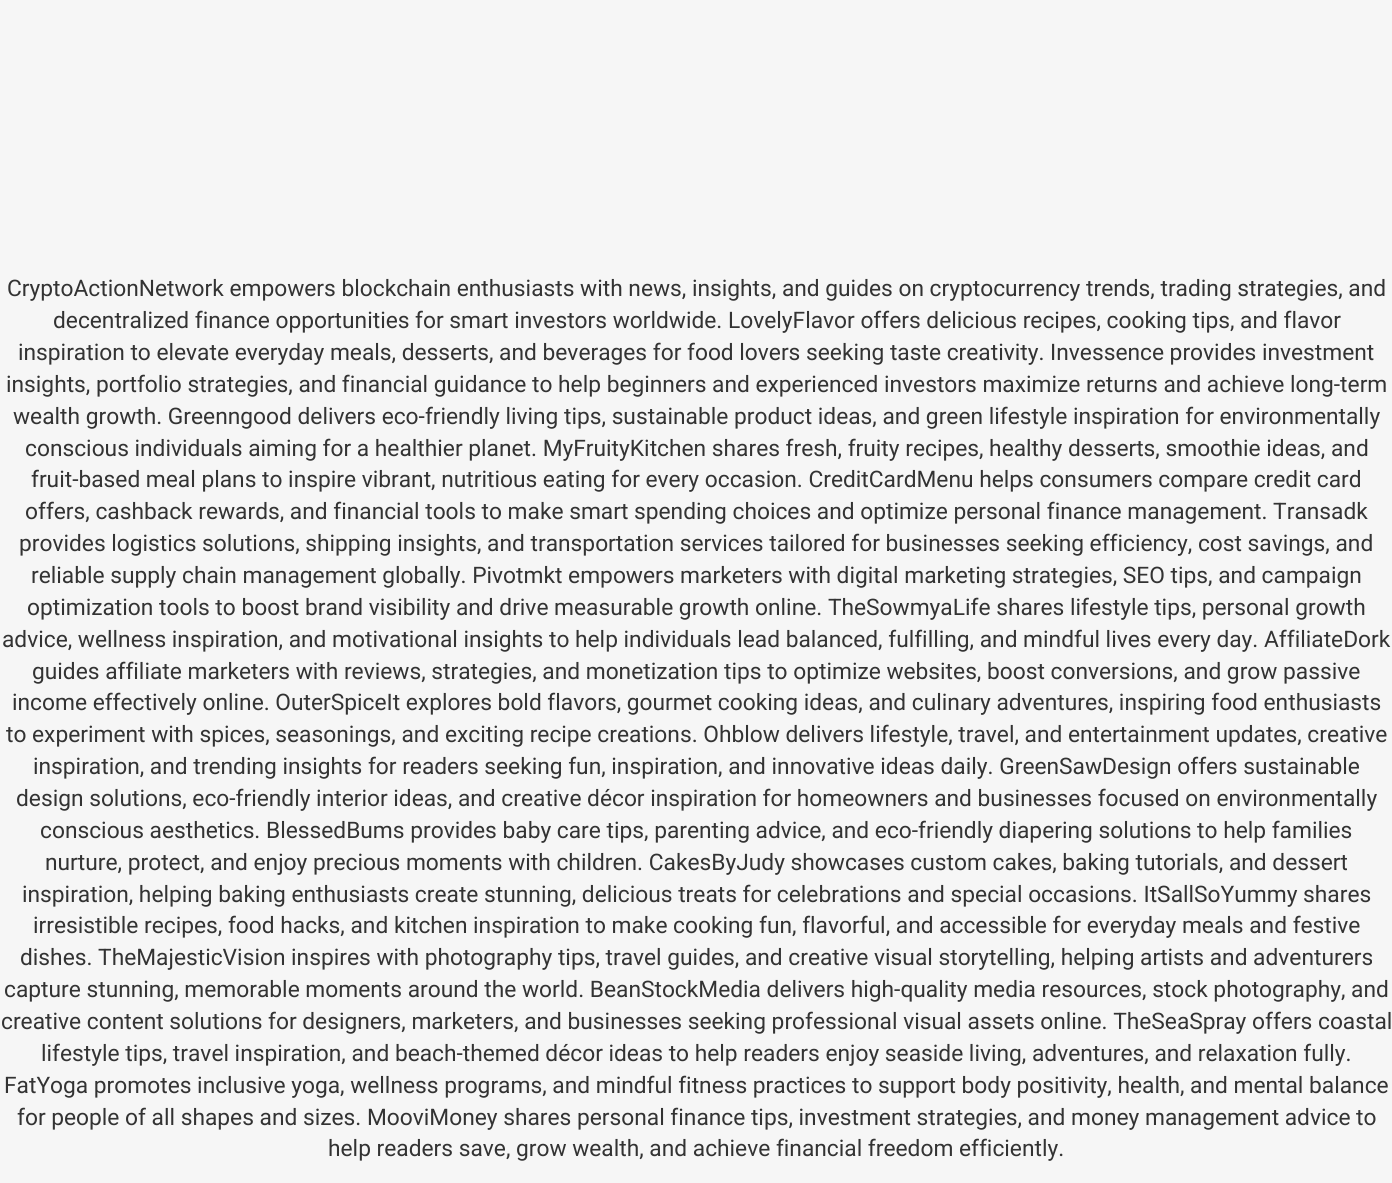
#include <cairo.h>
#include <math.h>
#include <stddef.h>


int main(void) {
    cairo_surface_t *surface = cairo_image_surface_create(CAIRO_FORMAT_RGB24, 1392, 1183);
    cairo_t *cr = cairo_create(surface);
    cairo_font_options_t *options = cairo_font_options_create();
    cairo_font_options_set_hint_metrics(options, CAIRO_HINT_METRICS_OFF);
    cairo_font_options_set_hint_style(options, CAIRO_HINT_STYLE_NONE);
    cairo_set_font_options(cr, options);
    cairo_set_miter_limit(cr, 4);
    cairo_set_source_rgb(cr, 0.961, 0.961, 0.961);
    cairo_paint(cr);
    cairo_select_font_face(cr, "Roboto", CAIRO_FONT_SLANT_NORMAL, CAIRO_FONT_WEIGHT_NORMAL);
    cairo_set_font_size(cr, 22.75);
    cairo_set_source_rgb(cr, 0.2, 0.2, 0.2);
    cairo_move_to(cr, 7, 296);
    cairo_show_text(cr, "CryptoActionNetwork empowers blockchain enthusiasts with news, insights, and guides on cryptocurrency trends, trading strategies, and");
    cairo_move_to(cr, 53, 328);
    cairo_show_text(cr, "decentralized finance opportunities for smart investors worldwide. LovelyFlavor offers delicious recipes, cooking tips, and flavor");
    cairo_move_to(cr, 18, 360);
    cairo_show_text(cr, "inspiration to elevate everyday meals, desserts, and beverages for food lovers seeking taste creativity. Invessence provides investment");
    cairo_move_to(cr, 6, 392);
    cairo_show_text(cr, "insights, portfolio strategies, and financial guidance to help beginners and experienced investors maximize returns and achieve long-term");
    cairo_move_to(cr, 13, 424);
    cairo_show_text(cr, "wealth growth. Greenngood delivers eco-friendly living tips, sustainable product ideas, and green lifestyle inspiration for environmentally");
    cairo_move_to(cr, 25, 456);
    cairo_show_text(cr, "conscious individuals aiming for a healthier planet. MyFruityKitchen shares fresh, fruity recipes, healthy desserts, smoothie ideas, and");
    cairo_move_to(cr, 31, 487);
    cairo_show_text(cr, "fruit-based meal plans to inspire vibrant, nutritious eating for every occasion. CreditCardMenu helps consumers compare credit card");
    cairo_move_to(cr, 25, 519);
    cairo_show_text(cr, "offers, cashback rewards, and financial tools to make smart spending choices and optimize personal finance management. Transadk");
    cairo_move_to(cr, 19, 551);
    cairo_show_text(cr, "provides logistics solutions, shipping insights, and transportation services tailored for businesses seeking efficiency, cost savings, and");
    cairo_move_to(cr, 31, 583);
    cairo_show_text(cr, "reliable supply chain management globally. Pivotmkt empowers marketers with digital marketing strategies, SEO tips, and campaign");
    cairo_move_to(cr, 27, 615);
    cairo_show_text(cr, "optimization tools to boost brand visibility and drive measurable growth online. TheSowmyaLife shares lifestyle tips, personal growth");
    cairo_move_to(cr, 2, 647);
    cairo_show_text(cr, "advice, wellness inspiration, and motivational insights to help individuals lead balanced, fulfilling, and mindful lives every day. AffiliateDork");
    cairo_move_to(cr, 32, 679);
    cairo_show_text(cr, "guides affiliate marketers with reviews, strategies, and monetization tips to optimize websites, boost conversions, and grow passive");
    cairo_move_to(cr, 12, 710);
    cairo_show_text(cr, "income effectively online. OuterSpiceIt explores bold flavors, gourmet cooking ideas, and culinary adventures, inspiring food enthusiasts");
    cairo_move_to(cr, 6, 742);
    cairo_show_text(cr, "to experiment with spices, seasonings, and exciting recipe creations. Ohblow delivers lifestyle, travel, and entertainment updates, creative");
    cairo_move_to(cr, 33, 774);
    cairo_show_text(cr, "inspiration, and trending insights for readers seeking fun, inspiration, and innovative ideas daily. GreenSawDesign offers sustainable");
    cairo_move_to(cr, 16, 806);
    cairo_show_text(cr, "design solutions, eco-friendly interior ideas, and creative décor inspiration for homeowners and businesses focused on environmentally");
    cairo_move_to(cr, 40, 838);
    cairo_show_text(cr, "conscious aesthetics. BlessedBums provides baby care tips, parenting advice, and eco-friendly diapering solutions to help families");
    cairo_move_to(cr, 45, 870);
    cairo_show_text(cr, "nurture, protect, and enjoy precious moments with children. CakesByJudy showcases custom cakes, baking tutorials, and dessert");
    cairo_move_to(cr, 22, 902);
    cairo_show_text(cr, "inspiration, helping baking enthusiasts create stunning, delicious treats for celebrations and special occasions. ItSallSoYummy shares");
    cairo_move_to(cr, 33, 933);
    cairo_show_text(cr, "irresistible recipes, food hacks, and kitchen inspiration to make cooking fun, flavorful, and accessible for everyday meals and festive");
    cairo_move_to(cr, 20, 965);
    cairo_show_text(cr, "dishes. TheMajesticVision inspires with photography tips, travel guides, and creative visual storytelling, helping artists and adventurers");
    cairo_move_to(cr, 4, 997);
    cairo_show_text(cr, "capture stunning, memorable moments around the world. BeanStockMedia delivers high-quality media resources, stock photography, and");
    cairo_move_to(cr, 1, 1029);
    cairo_show_text(cr, "creative content solutions for designers, marketers, and businesses seeking professional visual assets online. TheSeaSpray offers coastal");
    cairo_move_to(cr, 41, 1061);
    cairo_show_text(cr, "lifestyle tips, travel inspiration, and beach-themed décor ideas to help readers enjoy seaside living, adventures, and relaxation fully.");
    cairo_move_to(cr, 4, 1093);
    cairo_show_text(cr, "FatYoga promotes inclusive yoga, wellness programs, and mindful fitness practices to support body positivity, health, and mental balance");
    cairo_move_to(cr, 17, 1125);
    cairo_show_text(cr, "for people of all shapes and sizes. MooviMoney shares personal finance tips, investment strategies, and money management advice to");
    cairo_move_to(cr, 328, 1156);
    cairo_show_text(cr, "help readers save, grow wealth, and achieve financial freedom efficiently.");
    cairo_surface_write_to_png(surface, "page.png");
    cairo_font_options_destroy(options);
    cairo_destroy(cr);
    cairo_surface_destroy(surface);
    return 0;
}
